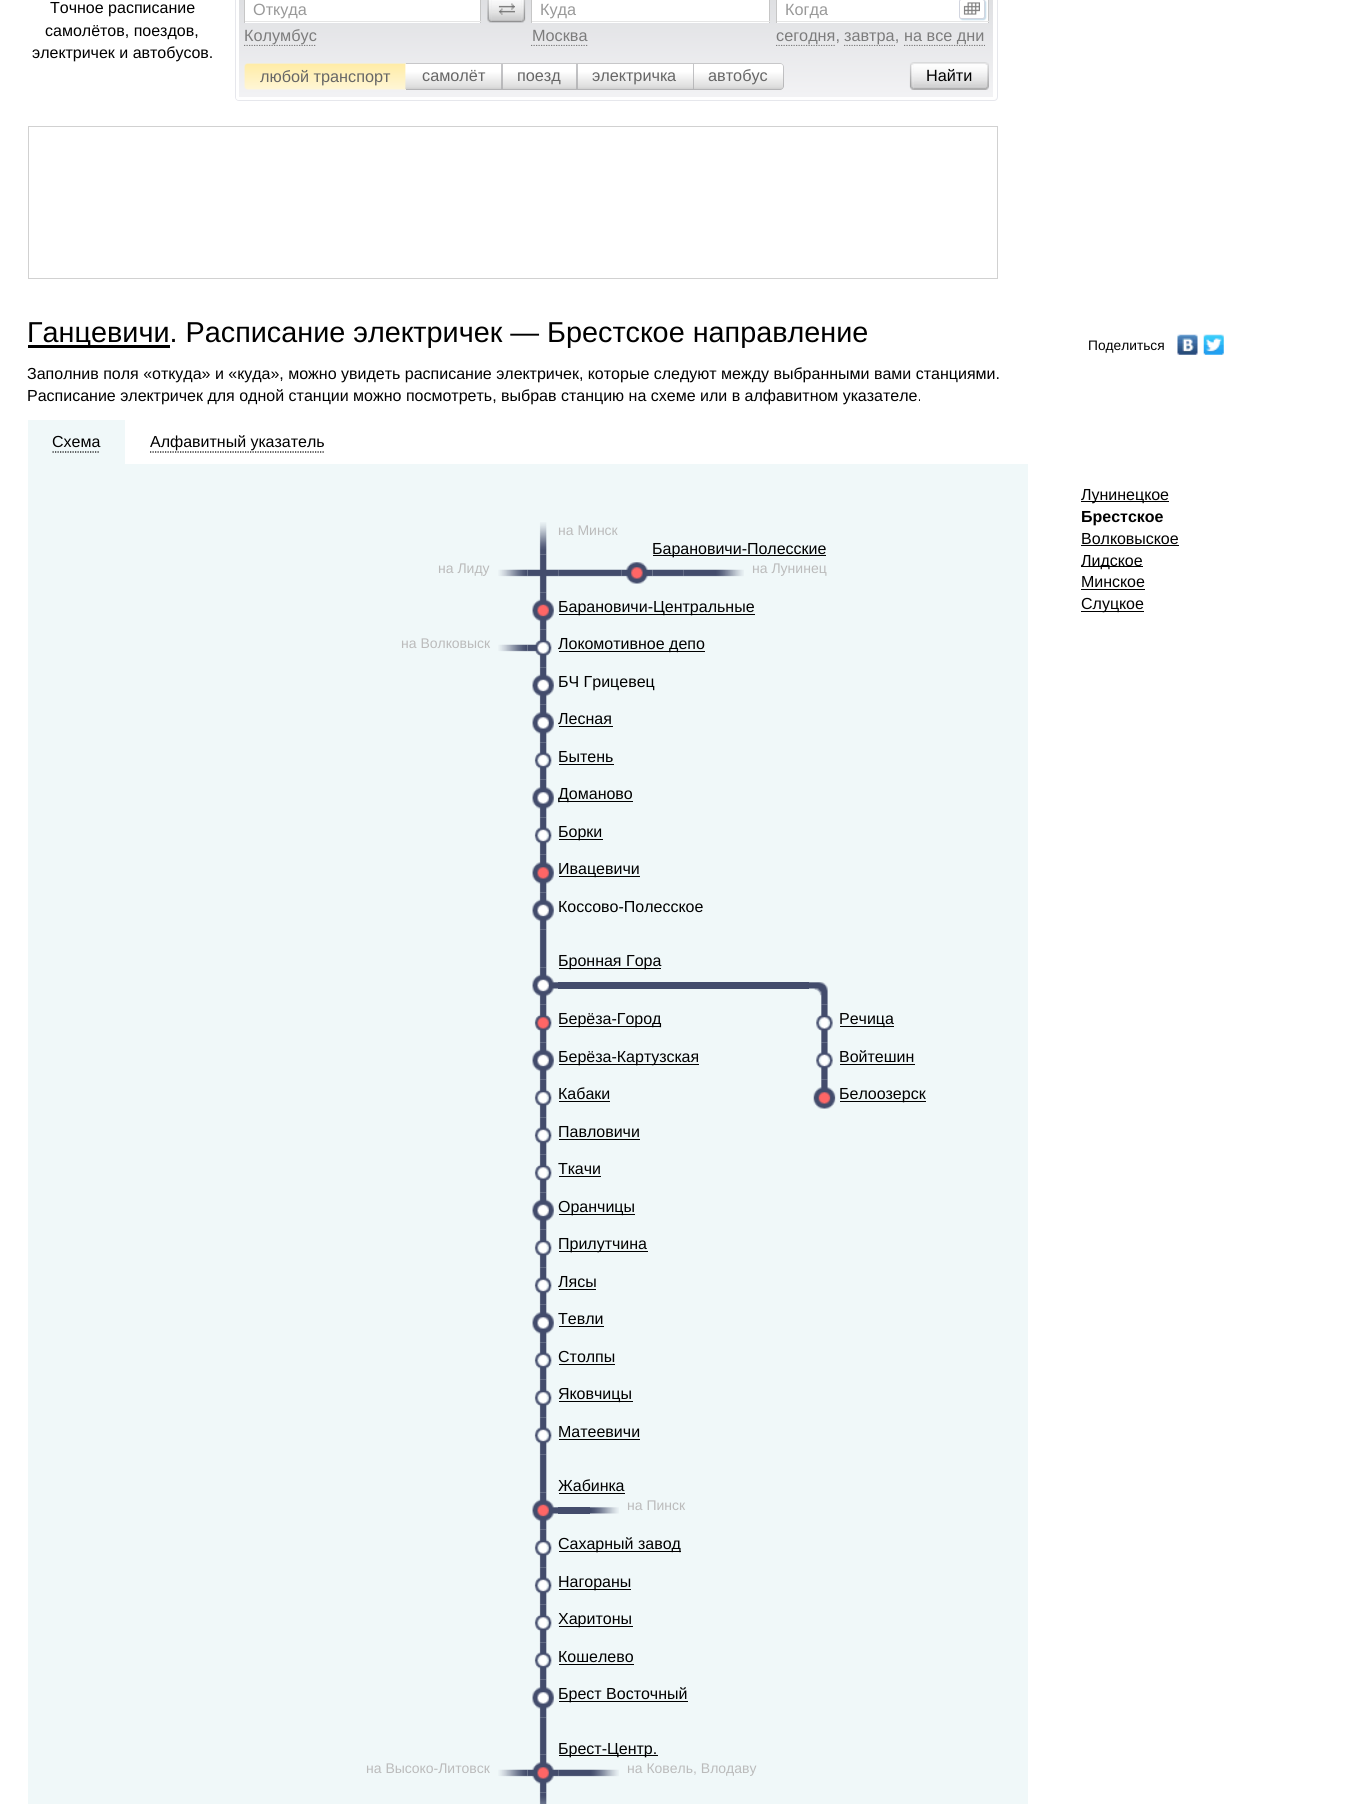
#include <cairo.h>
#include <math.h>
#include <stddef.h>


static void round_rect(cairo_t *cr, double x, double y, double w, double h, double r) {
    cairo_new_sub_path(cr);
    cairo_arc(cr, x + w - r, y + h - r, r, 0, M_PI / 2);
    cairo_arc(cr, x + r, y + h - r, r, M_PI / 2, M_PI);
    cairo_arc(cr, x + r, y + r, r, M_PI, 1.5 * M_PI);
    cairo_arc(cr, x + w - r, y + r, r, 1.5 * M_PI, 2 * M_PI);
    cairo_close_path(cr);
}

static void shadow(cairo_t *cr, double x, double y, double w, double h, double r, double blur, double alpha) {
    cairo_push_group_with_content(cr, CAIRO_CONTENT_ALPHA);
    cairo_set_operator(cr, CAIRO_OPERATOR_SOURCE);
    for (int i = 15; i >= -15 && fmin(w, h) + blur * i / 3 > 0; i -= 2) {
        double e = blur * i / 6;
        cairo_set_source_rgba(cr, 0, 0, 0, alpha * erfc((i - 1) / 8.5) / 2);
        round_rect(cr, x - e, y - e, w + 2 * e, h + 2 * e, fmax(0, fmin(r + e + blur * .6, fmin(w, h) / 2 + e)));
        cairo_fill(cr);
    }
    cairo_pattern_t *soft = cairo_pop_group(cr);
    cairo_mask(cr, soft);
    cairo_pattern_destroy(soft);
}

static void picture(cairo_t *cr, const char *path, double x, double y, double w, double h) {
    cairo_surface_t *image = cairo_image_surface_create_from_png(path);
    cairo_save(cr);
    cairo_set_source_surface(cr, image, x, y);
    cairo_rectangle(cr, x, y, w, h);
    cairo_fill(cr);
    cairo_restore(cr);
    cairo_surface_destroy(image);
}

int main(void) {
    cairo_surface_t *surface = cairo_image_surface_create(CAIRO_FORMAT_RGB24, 1347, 1804);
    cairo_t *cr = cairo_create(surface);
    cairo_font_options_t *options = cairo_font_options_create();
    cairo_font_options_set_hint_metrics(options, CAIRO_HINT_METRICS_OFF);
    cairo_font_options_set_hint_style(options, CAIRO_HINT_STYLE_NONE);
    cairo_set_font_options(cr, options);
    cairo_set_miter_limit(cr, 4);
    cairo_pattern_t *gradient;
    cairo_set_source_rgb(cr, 1, 1, 1);
    cairo_paint(cr);
    cairo_select_font_face(cr, "Liberation Sans", CAIRO_FONT_SLANT_NORMAL, CAIRO_FONT_WEIGHT_NORMAL);
    cairo_set_font_size(cr, 16);
    cairo_set_source_rgb(cr, 0, 0, 0);
    cairo_move_to(cr, 50, 13);
    cairo_show_text(cr, "Точное расписание");
    cairo_move_to(cr, 45, 36);
    cairo_show_text(cr, "самолётов, поездов,");
    cairo_move_to(cr, 32, 58);
    cairo_show_text(cr, "электричек и автобусов.");
    gradient = cairo_pattern_create_linear(616, -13, 616, 100);
    cairo_pattern_add_color_stop_rgba(gradient, 0, 0.863, 0.867, 0.878, 1);
    cairo_pattern_add_color_stop_rgba(gradient, 1, 0.953, 0.953, 0.961, 1);
    cairo_set_source(cr, gradient);
    cairo_pattern_destroy(gradient);
    round_rect(cr, 236, -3, 760, 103, 2.5);
    cairo_fill(cr);
    round_rect(cr, 235.5, -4.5, 762, 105, 3.5);
    cairo_set_source_rgb(cr, 0.902, 0.906, 0.925);
    cairo_set_line_width(cr, 1);
    cairo_stroke(cr);
    round_rect(cr, 237.5, -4.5, 757, 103, 1);
    cairo_set_source_rgb(cr, 1, 1, 1);
    cairo_set_line_width(cr, 3);
    cairo_stroke(cr);
    cairo_rectangle(cr, 245, 0, 235, 23);
    cairo_fill(cr);
    cairo_set_source_rgb(cr, 0.776, 0.776, 0.776);
    cairo_rectangle(cr, 480, 0, 1, 23);
    cairo_fill(cr);
    cairo_set_source_rgb(cr, 0.898, 0.898, 0.898);
    cairo_rectangle(cr, 244, 21, 237, 1);
    cairo_fill(cr);
    cairo_set_source_rgb(cr, 0.776, 0.776, 0.776);
    cairo_rectangle(cr, 244, 0, 1, 23);
    cairo_fill(cr);
    cairo_set_font_size(cr, 16.25);
    cairo_set_source_rgb(cr, 0.6, 0.6, 0.6);
    cairo_move_to(cr, 253, 15);
    cairo_show_text(cr, "Откуда");
    cairo_save(cr);
    cairo_rectangle(cr, 244, 26, 237, 20);
    cairo_clip(cr);
    cairo_new_path(cr);
    cairo_move_to(cr, 244, 45.5);
    cairo_line_to(cr, 316, 45.5);
    cairo_set_source_rgb(cr, 0.486, 0.486, 0.486);
    cairo_set_line_width(cr, 1.2);
    cairo_set_dash(cr, (double[]){1.25, 1.25}, 2, 0);
    cairo_stroke(cr);
    cairo_restore(cr);
    cairo_set_source_rgb(cr, 0.486, 0.486, 0.486);
    cairo_move_to(cr, 244, 41);
    cairo_show_text(cr, "Колумбус");
    picture(cr, "img1.png", 521, 0, 5, 23);
    picture(cr, "img2.png", 487, 0, 5, 23);
    picture(cr, "img3.png", 491, 0, 31, 23);
    picture(cr, "img4.png", 498, 3, 17, 12);
    cairo_set_source_rgb(cr, 1, 1, 1);
    cairo_rectangle(cr, 532, 0, 237, 23);
    cairo_fill(cr);
    cairo_set_source_rgb(cr, 0.776, 0.776, 0.776);
    cairo_rectangle(cr, 769, 0, 1, 23);
    cairo_fill(cr);
    cairo_set_source_rgb(cr, 0.898, 0.898, 0.898);
    cairo_rectangle(cr, 531, 21, 239, 1);
    cairo_fill(cr);
    cairo_set_source_rgb(cr, 0.776, 0.776, 0.776);
    cairo_rectangle(cr, 531, 0, 1, 23);
    cairo_fill(cr);
    cairo_set_source_rgb(cr, 0.6, 0.6, 0.6);
    cairo_move_to(cr, 540, 15);
    cairo_show_text(cr, "Куда");
    cairo_set_source_rgb(cr, 0.486, 0.486, 0.486);
    cairo_move_to(cr, 532, 41);
    cairo_show_text(cr, "Москва");
    cairo_save(cr);
    cairo_rectangle(cr, 531, 26, 239, 20);
    cairo_clip(cr);
    cairo_new_path(cr);
    cairo_move_to(cr, 531, 45.5);
    cairo_line_to(cr, 587.5, 45.5);
    cairo_set_line_width(cr, 1.2);
    cairo_set_dash(cr, (double[]){1.25, 1.25}, 2, 0);
    cairo_stroke(cr);
    cairo_restore(cr);
    cairo_set_source_rgb(cr, 1, 1, 1);
    cairo_rectangle(cr, 777, 0, 211, 23);
    cairo_fill(cr);
    cairo_set_source_rgb(cr, 0.776, 0.776, 0.776);
    cairo_rectangle(cr, 988, 0, 1, 23);
    cairo_fill(cr);
    cairo_set_source_rgb(cr, 0.898, 0.898, 0.898);
    cairo_rectangle(cr, 776, 21, 213, 1);
    cairo_fill(cr);
    cairo_set_source_rgb(cr, 0.765, 0.859, 0.91);
    shadow(cr, 960, 0, 26, 20, 2.5, 0.5, 1);
    cairo_set_source_rgb(cr, 1, 1, 1);
    round_rect(cr, 959.5, -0.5, 25, 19, 2);
    cairo_fill_preserve(cr);
    cairo_set_source_rgb(cr, 0.824, 0.835, 0.875);
    cairo_set_line_width(cr, 1);
    cairo_stroke(cr);
    picture(cr, "img5.png", 963, 2, 17, 13);
    cairo_set_source_rgb(cr, 0.776, 0.776, 0.776);
    cairo_rectangle(cr, 776, 0, 1, 23);
    cairo_fill(cr);
    cairo_set_source_rgb(cr, 0.6, 0.6, 0.6);
    cairo_move_to(cr, 785, 15);
    cairo_show_text(cr, "Когда");
    cairo_save(cr);
    cairo_rectangle(cr, 776, 26, 213, 20);
    cairo_clip(cr);
    cairo_new_path(cr);
    cairo_move_to(cr, 776, 45.5);
    cairo_line_to(cr, 835, 45.5);
    cairo_set_source_rgb(cr, 0.486, 0.486, 0.486);
    cairo_set_line_width(cr, 1.2);
    cairo_set_dash(cr, (double[]){1.25, 1.25}, 2, 0);
    cairo_stroke(cr);
    cairo_restore(cr);
    cairo_set_source_rgb(cr, 0.486, 0.486, 0.486);
    cairo_move_to(cr, 776, 41);
    cairo_show_text(cr, "сегодня,");
    cairo_save(cr);
    cairo_rectangle(cr, 776, 26, 213, 20);
    cairo_clip(cr);
    cairo_new_path(cr);
    cairo_move_to(cr, 844, 45.5);
    cairo_line_to(cr, 895, 45.5);
    cairo_set_line_width(cr, 1.2);
    cairo_set_dash(cr, (double[]){1.25, 1.25}, 2, 0);
    cairo_stroke(cr);
    cairo_restore(cr);
    cairo_move_to(cr, 844, 41);
    cairo_show_text(cr, "завтра,");
    cairo_save(cr);
    cairo_rectangle(cr, 776, 26, 213, 20);
    cairo_clip(cr);
    cairo_new_path(cr);
    cairo_move_to(cr, 904, 45.5);
    cairo_line_to(cr, 985, 45.5);
    cairo_set_line_width(cr, 1.2);
    cairo_set_dash(cr, (double[]){1.25, 1.25}, 2, 0);
    cairo_stroke(cr);
    cairo_restore(cr);
    cairo_move_to(cr, 904, 41);
    cairo_show_text(cr, "на все дни");
    gradient = cairo_pattern_create_linear(454, 62, 454, 90);
    cairo_pattern_add_color_stop_rgba(gradient, 0, 0, 0, 0, 0.15);
    cairo_pattern_add_color_stop_rgba(gradient, 1, 0, 0, 0, 0.25);
    cairo_set_source(cr, gradient);
    cairo_pattern_destroy(gradient);
    cairo_rectangle(cr, 406, 63, 95, 27);
    cairo_fill(cr);
    gradient = cairo_pattern_create_linear(453, 64, 453, 89);
    cairo_pattern_add_color_stop_rgba(gradient, 0.3, 1, 1, 1, 1);
    cairo_pattern_add_color_stop_rgba(gradient, 0.92, 0.867, 0.867, 0.867, 1);
    cairo_pattern_add_color_stop_rgba(gradient, 1, 0.808, 0.808, 0.808, 1);
    cairo_set_source(cr, gradient);
    cairo_pattern_destroy(gradient);
    cairo_rectangle(cr, 405, 64, 96, 25);
    cairo_fill(cr);
    gradient = cairo_pattern_create_linear(325, 62, 325, 90);
    cairo_pattern_add_color_stop_rgba(gradient, 0, 1, 0.925, 0.651, 0.4);
    cairo_pattern_add_color_stop_rgba(gradient, 1, 1, 0.965, 0.835, 0.4);
    cairo_set_source(cr, gradient);
    cairo_pattern_destroy(gradient);
    cairo_new_path(cr);
    cairo_move_to(cr, 248, 63);
    cairo_line_to(cr, 406, 63);
    cairo_line_to(cr, 406, 90);
    cairo_line_to(cr, 248, 90);
    cairo_curve_to(cr, 246, 90, 244, 88, 244, 86);
    cairo_line_to(cr, 244, 67);
    cairo_curve_to(cr, 244, 65, 246, 63, 248, 63);
    cairo_close_path(cr);
    cairo_fill(cr);
    gradient = cairo_pattern_create_linear(325, 64, 325, 89);
    cairo_pattern_add_color_stop_rgba(gradient, 0, 1, 0.925, 0.651, 1);
    cairo_pattern_add_color_stop_rgba(gradient, 1, 1, 0.965, 0.835, 1);
    cairo_set_source(cr, gradient);
    cairo_pattern_destroy(gradient);
    cairo_new_path(cr);
    cairo_move_to(cr, 247.5, 64);
    cairo_line_to(cr, 405, 64);
    cairo_line_to(cr, 405, 89);
    cairo_line_to(cr, 247.5, 89);
    cairo_curve_to(cr, 246, 89, 245, 88, 245, 86.5);
    cairo_line_to(cr, 245, 66.5);
    cairo_curve_to(cr, 245, 65, 246, 64, 247.5, 64);
    cairo_close_path(cr);
    cairo_fill(cr);
    cairo_set_source_rgb(cr, 0.4, 0.4, 0.4);
    cairo_move_to(cr, 260, 82);
    cairo_show_text(cr, "любой транспорт");
    cairo_move_to(cr, 422, 81);
    cairo_show_text(cr, "самолёт");
    gradient = cairo_pattern_create_linear(539, 63, 539, 90);
    cairo_pattern_add_color_stop_rgba(gradient, 0, 0, 0, 0, 0.15);
    cairo_pattern_add_color_stop_rgba(gradient, 1, 0, 0, 0, 0.25);
    cairo_set_source(cr, gradient);
    cairo_pattern_destroy(gradient);
    cairo_rectangle(cr, 501, 63, 75, 27);
    cairo_fill(cr);
    gradient = cairo_pattern_create_linear(539, 64, 539, 89);
    cairo_pattern_add_color_stop_rgba(gradient, 0.3, 1, 1, 1, 1);
    cairo_pattern_add_color_stop_rgba(gradient, 0.92, 0.867, 0.867, 0.867, 1);
    cairo_pattern_add_color_stop_rgba(gradient, 1, 0.808, 0.808, 0.808, 1);
    cairo_set_source(cr, gradient);
    cairo_pattern_destroy(gradient);
    cairo_rectangle(cr, 503, 64, 73, 25);
    cairo_fill(cr);
    cairo_set_source_rgb(cr, 0.4, 0.4, 0.4);
    cairo_move_to(cr, 517, 81);
    cairo_show_text(cr, "поезд");
    gradient = cairo_pattern_create_linear(634, 62, 634, 90);
    cairo_pattern_add_color_stop_rgba(gradient, 0, 0, 0, 0, 0.15);
    cairo_pattern_add_color_stop_rgba(gradient, 1, 0, 0, 0, 0.25);
    cairo_set_source(cr, gradient);
    cairo_pattern_destroy(gradient);
    cairo_rectangle(cr, 576, 63, 117, 27);
    cairo_fill(cr);
    gradient = cairo_pattern_create_linear(635, 64, 635, 89);
    cairo_pattern_add_color_stop_rgba(gradient, 0.3, 1, 1, 1, 1);
    cairo_pattern_add_color_stop_rgba(gradient, 0.92, 0.867, 0.867, 0.867, 1);
    cairo_pattern_add_color_stop_rgba(gradient, 1, 0.808, 0.808, 0.808, 1);
    cairo_set_source(cr, gradient);
    cairo_pattern_destroy(gradient);
    cairo_rectangle(cr, 578, 64, 115, 25);
    cairo_fill(cr);
    cairo_set_source_rgb(cr, 0.4, 0.4, 0.4);
    cairo_move_to(cr, 592, 81);
    cairo_show_text(cr, "электричка");
    gradient = cairo_pattern_create_linear(738, 62, 738, 90);
    cairo_pattern_add_color_stop_rgba(gradient, 0, 0, 0, 0, 0.15);
    cairo_pattern_add_color_stop_rgba(gradient, 1, 0, 0, 0, 0.25);
    cairo_set_source(cr, gradient);
    cairo_pattern_destroy(gradient);
    cairo_new_path(cr);
    cairo_move_to(cr, 693, 63);
    cairo_line_to(cr, 780, 63);
    cairo_curve_to(cr, 782, 63, 784, 65, 784, 67);
    cairo_line_to(cr, 784, 86);
    cairo_curve_to(cr, 784, 88, 782, 90, 780, 90);
    cairo_line_to(cr, 693, 90);
    cairo_close_path(cr);
    cairo_fill(cr);
    gradient = cairo_pattern_create_linear(738, 64, 738, 89);
    cairo_pattern_add_color_stop_rgba(gradient, 0.3, 1, 1, 1, 1);
    cairo_pattern_add_color_stop_rgba(gradient, 0.92, 0.867, 0.867, 0.867, 1);
    cairo_pattern_add_color_stop_rgba(gradient, 1, 0.808, 0.808, 0.808, 1);
    cairo_set_source(cr, gradient);
    cairo_pattern_destroy(gradient);
    cairo_new_path(cr);
    cairo_move_to(cr, 694, 64);
    cairo_line_to(cr, 780.5, 64);
    cairo_curve_to(cr, 782, 64, 783, 65, 783, 66.5);
    cairo_line_to(cr, 783, 86.5);
    cairo_curve_to(cr, 783, 88, 782, 89, 780.5, 89);
    cairo_line_to(cr, 694, 89);
    cairo_close_path(cr);
    cairo_fill(cr);
    cairo_set_source_rgb(cr, 0.4, 0.4, 0.4);
    cairo_move_to(cr, 708, 81);
    cairo_show_text(cr, "автобус");
    picture(cr, "img6.png", 985, 62, 4, 28);
    picture(cr, "img7.png", 909, 62, 5, 28);
    picture(cr, "img8.png", 913, 62, 72, 28);
    cairo_set_source_rgb(cr, 0, 0, 0);
    cairo_move_to(cr, 926, 81);
    cairo_show_text(cr, "Найти");
    cairo_rectangle(cr, 28.5, 126.5, 969, 152);
    cairo_set_source_rgb(cr, 0.82, 0.82, 0.82);
    cairo_stroke(cr);
    cairo_set_source_rgb(cr, 0, 0, 0);
    cairo_rectangle(cr, 28, 345, 142, 3);
    cairo_fill(cr);
    cairo_set_font_size(cr, 28.8);
    cairo_move_to(cr, 27, 342);
    cairo_show_text(cr, "Ганцевичи. Расписание электричек — Брестское направление");
    cairo_set_font_size(cr, 16);
    cairo_move_to(cr, 27, 379);
    cairo_show_text(cr, "Заполнив поля «откуда» и «куда», можно увидеть расписание электричек, которые следуют между выбранными вами станциями.");
    cairo_move_to(cr, 27, 401);
    cairo_show_text(cr, "Расписание электричек для одной станции можно посмотреть, выбрав станцию на схеме или в алфавитном указателе.");
    cairo_set_font_size(cr, 13.75);
    cairo_move_to(cr, 1088, 350);
    cairo_show_text(cr, "Поделиться");
    picture(cr, "img9.png", 1177, 334, 21, 21);
    picture(cr, "img10.png", 1203, 334, 21, 21);
    cairo_set_source_rgb(cr, 0.941, 0.969, 0.976);
    cairo_rectangle(cr, 28, 420, 97, 44);
    cairo_fill(cr);
    cairo_set_font_size(cr, 16);
    cairo_set_source_rgb(cr, 0, 0, 0);
    cairo_move_to(cr, 52, 447);
    cairo_show_text(cr, "Схема");
    cairo_new_path(cr);
    cairo_move_to(cr, 52.5, 452);
    cairo_line_to(cr, 100, 452);
    cairo_set_line_width(cr, 1.2);
    cairo_set_dash(cr, (double[]){1.25, 1.25}, 2, 0);
    cairo_stroke(cr);
    cairo_move_to(cr, 150, 447);
    cairo_show_text(cr, "Алфавитный указатель");
    cairo_new_path(cr);
    cairo_move_to(cr, 150, 452);
    cairo_line_to(cr, 325, 452);
    cairo_stroke(cr);
    cairo_set_source_rgb(cr, 0.941, 0.969, 0.976);
    cairo_rectangle(cr, 28, 464, 1000, 1340);
    cairo_fill(cr);
    picture(cr, "img11.png", 539, 522, 8, 33);
    cairo_set_font_size(cr, 14);
    cairo_set_source_rgb(cr, 0.733, 0.733, 0.733);
    cairo_move_to(cr, 558, 535);
    cairo_show_text(cr, "на Минск");
    cairo_set_source_rgb(cr, 0, 0, 0);
    cairo_rectangle(cr, 653, 555, 173, 1);
    cairo_fill(cr);
    cairo_set_font_size(cr, 16);
    cairo_move_to(cr, 652, 554);
    cairo_show_text(cr, "Барановичи-Полесские");
    picture(cr, "img16.png", 590, 569, 32, 8);
    picture(cr, "img12.png", 621, 562, 32, 22);
    cairo_set_font_size(cr, 14);
    cairo_set_source_rgb(cr, 0.733, 0.733, 0.733);
    cairo_move_to(cr, 438, 573);
    cairo_show_text(cr, "на Лиду");
    picture(cr, "img13.png", 498, 569, 30, 8);
    picture(cr, "img14.png", 527, 554, 32, 39);
    picture(cr, "img15.png", 558, 569, 32, 8);
    picture(cr, "img17.png", 652, 569, 32, 8);
    picture(cr, "img15.png", 683, 569, 32, 8);
    picture(cr, "img18.png", 715, 569, 29, 8);
    cairo_move_to(cr, 752, 573);
    cairo_show_text(cr, "на Лунинец");
    picture(cr, "img19.png", 532, 592, 22, 38);
    cairo_set_source_rgb(cr, 0, 0, 0);
    cairo_rectangle(cr, 559, 614, 196, 1);
    cairo_fill(cr);
    cairo_set_font_size(cr, 16);
    cairo_move_to(cr, 558, 612);
    cairo_show_text(cr, "Барановичи-Центральные");
    cairo_set_font_size(cr, 14);
    cairo_set_source_rgb(cr, 0.733, 0.733, 0.733);
    cairo_move_to(cr, 401, 648);
    cairo_show_text(cr, "на Волковыск");
    picture(cr, "img13.png", 498, 644, 30, 8);
    picture(cr, "img20.png", 527, 629, 25, 39);
    cairo_set_source_rgb(cr, 0, 0, 0);
    cairo_rectangle(cr, 559, 651, 146, 1);
    cairo_fill(cr);
    cairo_set_font_size(cr, 16);
    cairo_move_to(cr, 558, 649);
    cairo_show_text(cr, "Локомотивное депо");
    picture(cr, "img21.png", 532, 667, 22, 38);
    cairo_move_to(cr, 558, 687);
    cairo_show_text(cr, "БЧ Грицевец");
    picture(cr, "img22.png", 532, 704, 22, 39);
    cairo_move_to(cr, 558, 724);
    cairo_show_text(cr, "Лесная");
    cairo_rectangle(cr, 559, 726, 54, 1);
    cairo_fill(cr);
    picture(cr, "img23.png", 534, 742, 18, 38);
    cairo_move_to(cr, 558, 762);
    cairo_show_text(cr, "Бытень");
    cairo_rectangle(cr, 559, 764, 55, 1);
    cairo_fill(cr);
    picture(cr, "img22.png", 532, 779, 22, 39);
    cairo_rectangle(cr, 559, 801, 74, 1);
    cairo_fill(cr);
    cairo_move_to(cr, 558, 799);
    cairo_show_text(cr, "Доманово");
    picture(cr, "img23.png", 534, 817, 18, 38);
    cairo_rectangle(cr, 559, 839, 44, 1);
    cairo_fill(cr);
    cairo_move_to(cr, 558, 837);
    cairo_show_text(cr, "Борки");
    picture(cr, "img24.png", 532, 854, 22, 39);
    cairo_rectangle(cr, 559, 876, 81, 1);
    cairo_fill(cr);
    cairo_move_to(cr, 558, 874);
    cairo_show_text(cr, "Ивацевичи");
    picture(cr, "img21.png", 532, 892, 22, 38);
    cairo_move_to(cr, 558, 912);
    cairo_show_text(cr, "Коссово-Полесское");
    picture(cr, "img25.png", 539, 929, 8, 39);
    cairo_rectangle(cr, 559, 968, 102, 1);
    cairo_fill(cr);
    cairo_move_to(cr, 558, 966);
    cairo_show_text(cr, "Бронная Гора");
    picture(cr, "img26.png", 532, 967, 26, 38);
    cairo_set_source_rgb(cr, 0.263, 0.298, 0.424);
    cairo_rectangle(cr, 558, 982, 251, 7);
    cairo_fill(cr);
    picture(cr, "img27.png", 809, 982, 19, 23);
    picture(cr, "img28.png", 534, 1004, 18, 39);
    cairo_set_source_rgb(cr, 0, 0, 0);
    cairo_rectangle(cr, 559, 1026, 102, 1);
    cairo_fill(cr);
    cairo_move_to(cr, 558, 1024);
    cairo_show_text(cr, "Берёза-Город");
    picture(cr, "img29.png", 816, 1004, 17, 39);
    cairo_rectangle(cr, 840, 1026, 54, 1);
    cairo_fill(cr);
    cairo_move_to(cr, 839, 1024);
    cairo_show_text(cr, "Речица");
    picture(cr, "img21.png", 532, 1042, 22, 38);
    cairo_rectangle(cr, 559, 1064, 140, 1);
    cairo_fill(cr);
    cairo_move_to(cr, 558, 1062);
    cairo_show_text(cr, "Берёза-Картузская");
    picture(cr, "img30.png", 816, 1042, 17, 38);
    cairo_move_to(cr, 839, 1062);
    cairo_show_text(cr, "Войтешин");
    cairo_rectangle(cr, 840, 1064, 75, 1);
    cairo_fill(cr);
    picture(cr, "img31.png", 534, 1079, 18, 39);
    cairo_move_to(cr, 558, 1099);
    cairo_show_text(cr, "Кабаки");
    cairo_rectangle(cr, 559, 1101, 51, 1);
    cairo_fill(cr);
    picture(cr, "img32.png", 813, 1079, 23, 30);
    cairo_rectangle(cr, 840, 1101, 86, 1);
    cairo_fill(cr);
    cairo_move_to(cr, 839, 1099);
    cairo_show_text(cr, "Белоозерск");
    picture(cr, "img23.png", 534, 1117, 18, 38);
    cairo_move_to(cr, 558, 1137);
    cairo_show_text(cr, "Павловичи");
    cairo_rectangle(cr, 559, 1139, 81, 1);
    cairo_fill(cr);
    picture(cr, "img31.png", 534, 1154, 18, 39);
    cairo_move_to(cr, 558, 1174);
    cairo_show_text(cr, "Ткачи");
    cairo_rectangle(cr, 559, 1176, 42, 1);
    cairo_fill(cr);
    picture(cr, "img21.png", 532, 1192, 22, 38);
    cairo_rectangle(cr, 559, 1214, 76, 1);
    cairo_fill(cr);
    cairo_move_to(cr, 558, 1212);
    cairo_show_text(cr, "Оранчицы");
    picture(cr, "img31.png", 534, 1229, 18, 39);
    cairo_rectangle(cr, 559, 1251, 89, 1);
    cairo_fill(cr);
    cairo_move_to(cr, 558, 1249);
    cairo_show_text(cr, "Прилутчина");
    picture(cr, "img23.png", 534, 1267, 18, 38);
    cairo_move_to(cr, 558, 1287);
    cairo_show_text(cr, "Лясы");
    cairo_rectangle(cr, 559, 1289, 37, 1);
    cairo_fill(cr);
    picture(cr, "img22.png", 532, 1304, 22, 39);
    cairo_move_to(cr, 558, 1324);
    cairo_show_text(cr, "Тевли");
    cairo_rectangle(cr, 559, 1326, 45, 1);
    cairo_fill(cr);
    picture(cr, "img23.png", 534, 1342, 18, 38);
    cairo_move_to(cr, 558, 1362);
    cairo_show_text(cr, "Столпы");
    cairo_rectangle(cr, 559, 1364, 56, 1);
    cairo_fill(cr);
    picture(cr, "img31.png", 534, 1379, 18, 39);
    cairo_rectangle(cr, 559, 1401, 74, 1);
    cairo_fill(cr);
    cairo_move_to(cr, 558, 1399);
    cairo_show_text(cr, "Яковчицы");
    picture(cr, "img23.png", 534, 1417, 18, 38);
    cairo_move_to(cr, 558, 1437);
    cairo_show_text(cr, "Матеевичи");
    cairo_rectangle(cr, 559, 1439, 81, 1);
    cairo_fill(cr);
    picture(cr, "img25.png", 539, 1454, 8, 39);
    cairo_move_to(cr, 558, 1491);
    cairo_show_text(cr, "Жабинка");
    cairo_rectangle(cr, 559, 1493, 66, 1);
    cairo_fill(cr);
    picture(cr, "img33.png", 532, 1492, 26, 38);
    cairo_set_source_rgb(cr, 0.263, 0.298, 0.424);
    cairo_rectangle(cr, 558, 1507, 32, 7);
    cairo_fill(cr);
    picture(cr, "img34.png", 590, 1507, 29, 7);
    cairo_set_font_size(cr, 14);
    cairo_set_source_rgb(cr, 0.733, 0.733, 0.733);
    cairo_move_to(cr, 627, 1510);
    cairo_show_text(cr, "на Пинск");
    picture(cr, "img31.png", 534, 1529, 18, 39);
    cairo_set_source_rgb(cr, 0, 0, 0);
    cairo_rectangle(cr, 559, 1551, 122, 1);
    cairo_fill(cr);
    cairo_set_font_size(cr, 16);
    cairo_move_to(cr, 558, 1549);
    cairo_show_text(cr, "Сахарный завод");
    picture(cr, "img23.png", 534, 1567, 18, 38);
    cairo_rectangle(cr, 559, 1589, 72, 1);
    cairo_fill(cr);
    cairo_move_to(cr, 558, 1587);
    cairo_show_text(cr, "Нагораны");
    picture(cr, "img31.png", 534, 1604, 18, 39);
    cairo_rectangle(cr, 559, 1626, 74, 1);
    cairo_fill(cr);
    cairo_move_to(cr, 558, 1624);
    cairo_show_text(cr, "Харитоны");
    picture(cr, "img23.png", 534, 1642, 18, 38);
    cairo_move_to(cr, 558, 1662);
    cairo_show_text(cr, "Кошелево");
    cairo_rectangle(cr, 559, 1664, 75, 1);
    cairo_fill(cr);
    picture(cr, "img22.png", 532, 1679, 22, 39);
    cairo_rectangle(cr, 559, 1701, 129, 1);
    cairo_fill(cr);
    cairo_move_to(cr, 558, 1699);
    cairo_show_text(cr, "Брест Восточный");
    picture(cr, "img35.png", 539, 1717, 8, 38);
    cairo_rectangle(cr, 559, 1755, 99, 1);
    cairo_fill(cr);
    cairo_move_to(cr, 558, 1754);
    cairo_show_text(cr, "Брест-Центр.");
    picture(cr, "img13.png", 498, 1769, 30, 8);
    picture(cr, "img36.png", 527, 1754, 32, 39);
    cairo_set_font_size(cr, 14);
    cairo_set_source_rgb(cr, 0.733, 0.733, 0.733);
    cairo_move_to(cr, 366, 1773);
    cairo_show_text(cr, "на Высоко-Литовск");
    picture(cr, "img15.png", 558, 1769, 32, 8);
    picture(cr, "img37.png", 590, 1769, 29, 8);
    cairo_move_to(cr, 627, 1773);
    cairo_show_text(cr, "на Ковель, Влодаву");
    picture(cr, "img38.png", 539, 1792, 8, 12);
    cairo_set_source_rgb(cr, 0, 0, 0);
    cairo_rectangle(cr, 1081, 501, 88, 1);
    cairo_fill(cr);
    cairo_set_font_size(cr, 16);
    cairo_move_to(cr, 1081, 500);
    cairo_show_text(cr, "Лунинецкое");
    cairo_select_font_face(cr, "Liberation Sans", CAIRO_FONT_SLANT_NORMAL, CAIRO_FONT_WEIGHT_BOLD);
    cairo_move_to(cr, 1081, 522);
    cairo_show_text(cr, "Брестское");
    cairo_select_font_face(cr, "Liberation Sans", CAIRO_FONT_SLANT_NORMAL, CAIRO_FONT_WEIGHT_NORMAL);
    cairo_move_to(cr, 1081, 544);
    cairo_show_text(cr, "Волковыское");
    cairo_rectangle(cr, 1081, 545, 98, 1);
    cairo_fill(cr);
    cairo_rectangle(cr, 1081, 566, 62, 1);
    cairo_fill(cr);
    cairo_move_to(cr, 1081, 566);
    cairo_show_text(cr, "Лидское");
    cairo_move_to(cr, 1081, 587);
    cairo_show_text(cr, "Минское");
    cairo_rectangle(cr, 1081, 589, 64, 1);
    cairo_fill(cr);
    cairo_rectangle(cr, 1081, 611, 63, 1);
    cairo_fill(cr);
    cairo_move_to(cr, 1081, 609);
    cairo_show_text(cr, "Слуцкое");
    cairo_surface_write_to_png(surface, "page.png");
    cairo_font_options_destroy(options);
    cairo_destroy(cr);
    cairo_surface_destroy(surface);
    return 0;
}
